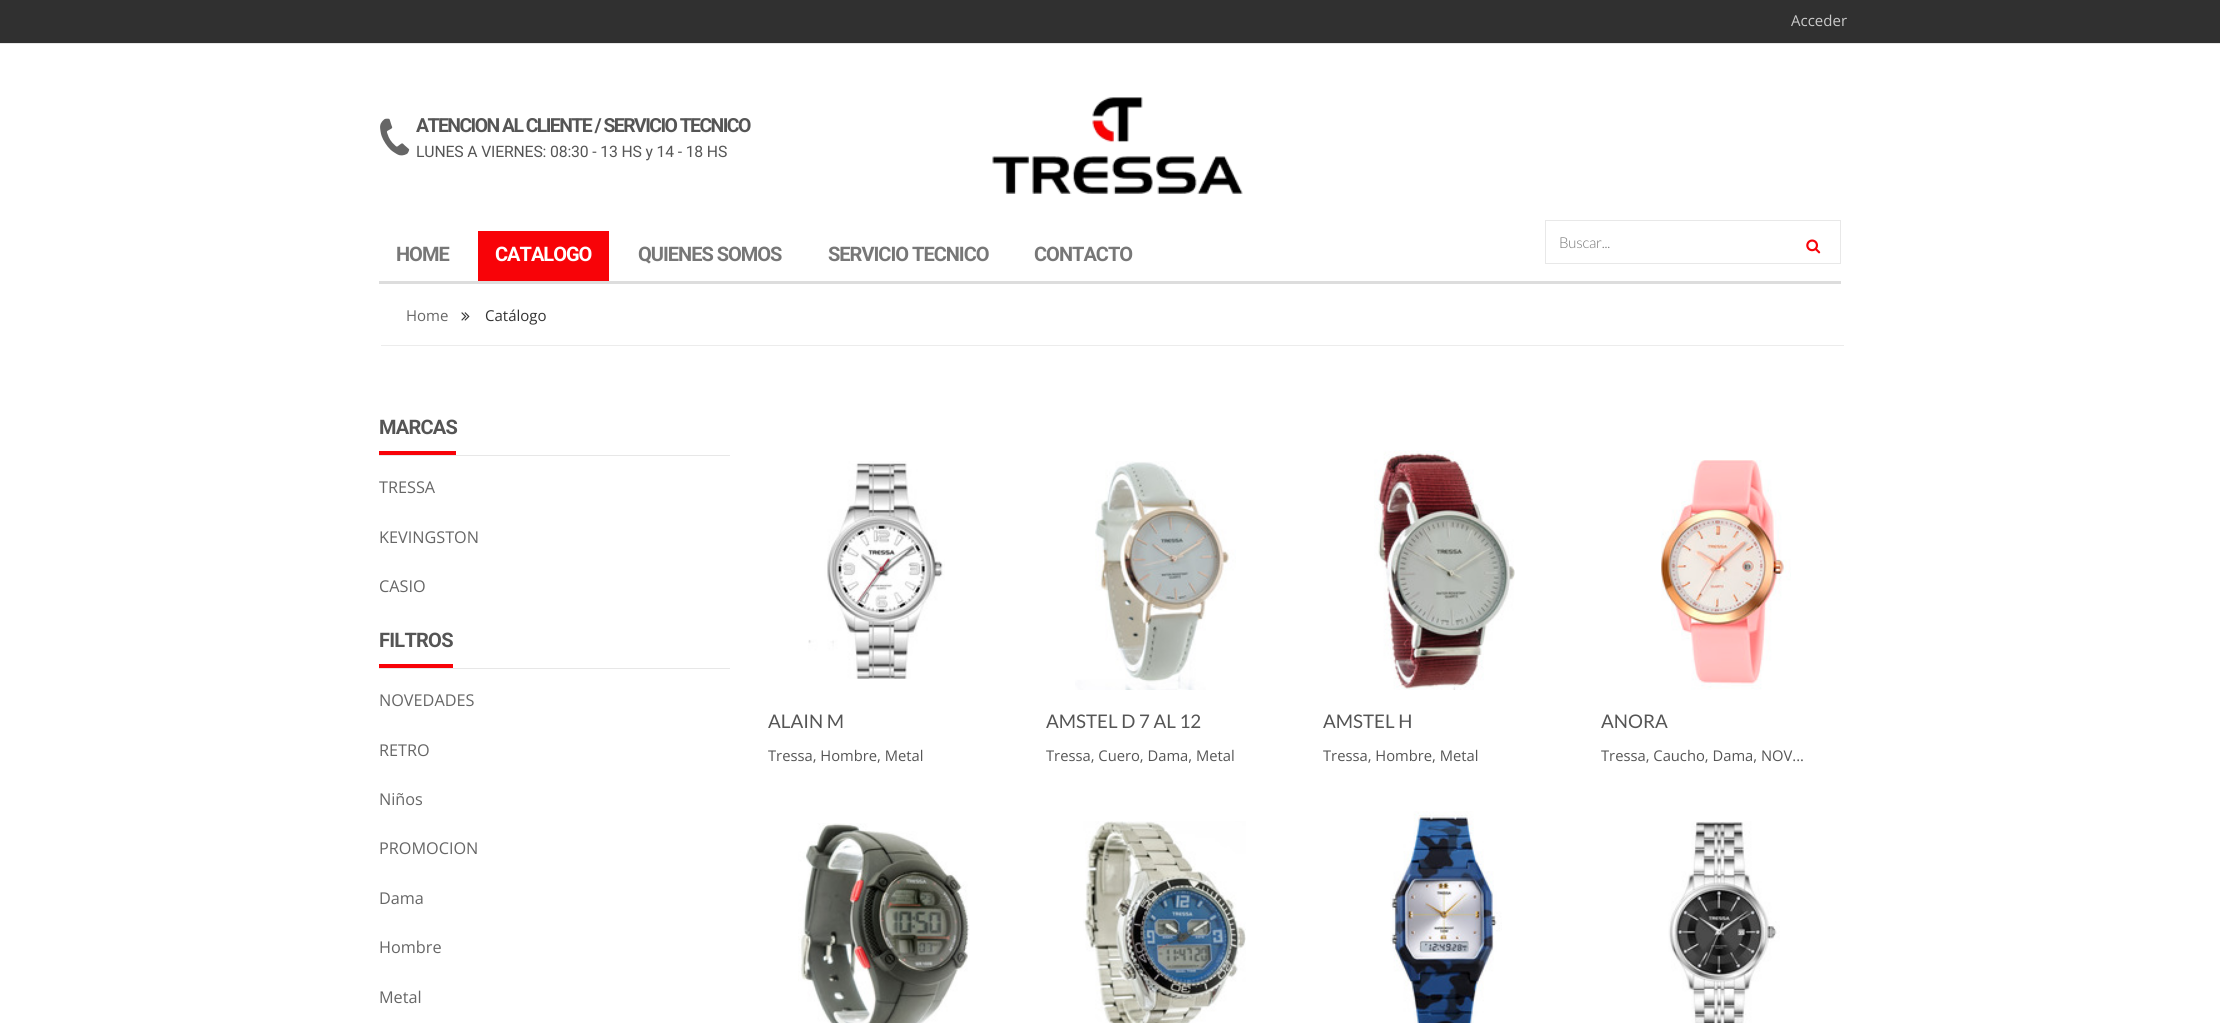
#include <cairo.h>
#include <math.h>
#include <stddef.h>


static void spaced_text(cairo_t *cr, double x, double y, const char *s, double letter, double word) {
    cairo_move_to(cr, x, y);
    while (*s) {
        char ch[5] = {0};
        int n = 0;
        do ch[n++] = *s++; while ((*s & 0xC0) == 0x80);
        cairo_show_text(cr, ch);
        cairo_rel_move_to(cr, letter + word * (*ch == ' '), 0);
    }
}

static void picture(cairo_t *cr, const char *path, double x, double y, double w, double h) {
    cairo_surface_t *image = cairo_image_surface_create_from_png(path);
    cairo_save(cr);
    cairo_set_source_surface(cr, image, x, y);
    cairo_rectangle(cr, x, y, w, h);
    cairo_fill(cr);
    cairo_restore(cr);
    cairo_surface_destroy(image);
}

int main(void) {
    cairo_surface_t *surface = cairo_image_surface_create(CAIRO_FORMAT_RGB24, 2220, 1023);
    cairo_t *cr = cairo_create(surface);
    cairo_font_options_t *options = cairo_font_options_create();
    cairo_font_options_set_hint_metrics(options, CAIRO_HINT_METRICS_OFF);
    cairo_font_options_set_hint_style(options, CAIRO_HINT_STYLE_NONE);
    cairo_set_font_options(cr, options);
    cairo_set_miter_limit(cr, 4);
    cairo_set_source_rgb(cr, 1, 1, 1);
    cairo_paint(cr);
    cairo_set_source_rgb(cr, 0.188, 0.188, 0.188);
    cairo_rectangle(cr, 0, 0, 2220, 43);
    cairo_fill(cr);
    cairo_set_source_rgb(cr, 0.906, 0.906, 0.906);
    cairo_rectangle(cr, 0, 43, 2220, 1);
    cairo_fill(cr);
    cairo_select_font_face(cr, "Open Sans", CAIRO_FONT_SLANT_NORMAL, CAIRO_FONT_WEIGHT_NORMAL);
    cairo_set_font_size(cr, 15);
    cairo_set_source_rgb(cr, 0.792, 0.792, 0.792);
    cairo_move_to(cr, 1791, 26);
    cairo_show_text(cr, "Acceder");
    picture(cr, "img1.png", 380, 118, 30, 38);
    cairo_select_font_face(cr, "Roboto", CAIRO_FONT_SLANT_NORMAL, CAIRO_FONT_WEIGHT_BOLD);
    cairo_set_font_size(cr, 19.4);
    cairo_set_source_rgb(cr, 0.333, 0.333, 0.333);
    spaced_text(cr, 416, 132, "ATENCION AL CLIENTE / SERVICIO TECNICO", -1.55, 0);
    cairo_select_font_face(cr, "Roboto", CAIRO_FONT_SLANT_NORMAL, CAIRO_FONT_WEIGHT_NORMAL);
    cairo_set_font_size(cr, 15.75);
    spaced_text(cr, 416, 157, "LUNES A VIERNES: 08:30 - 13 HS y 14 - 18 HS", -0.15, 0);
    picture(cr, "img2.png", 992, 97, 251, 97);
    cairo_rectangle(cr, 1545.5, 220.5, 295, 43);
    cairo_set_source_rgb(cr, 0.91, 0.91, 0.91);
    cairo_set_line_width(cr, 1);
    cairo_stroke(cr);
    cairo_select_font_face(cr, "Lato Light", CAIRO_FONT_SLANT_NORMAL, CAIRO_FONT_WEIGHT_NORMAL);
    cairo_set_font_size(cr, 15);
    cairo_set_source_rgb(cr, 0.467, 0.467, 0.467);
    spaced_text(cr, 1559, 248, "Buscar...", -0.25, 0);
    picture(cr, "img3.png", 1806, 239, 15, 15);
    cairo_set_source_rgb(cr, 0.867, 0.867, 0.867);
    cairo_rectangle(cr, 379, 281, 1462, 3);
    cairo_fill(cr);
    cairo_select_font_face(cr, "Roboto", CAIRO_FONT_SLANT_NORMAL, CAIRO_FONT_WEIGHT_BOLD);
    cairo_set_font_size(cr, 20);
    cairo_set_source_rgb(cr, 0.467, 0.467, 0.467);
    spaced_text(cr, 396, 261, "HOME", -1, 0);
    cairo_set_source_rgb(cr, 0.969, 0.012, 0.035);
    cairo_rectangle(cr, 478, 231, 131, 50);
    cairo_fill(cr);
    cairo_set_source_rgb(cr, 1, 1, 1);
    spaced_text(cr, 495, 261, "CATALOGO", -1, 0);
    cairo_set_source_rgb(cr, 0.467, 0.467, 0.467);
    spaced_text(cr, 638, 261, "QUIENES SOMOS", -1, 0);
    spaced_text(cr, 828, 261, "SERVICIO TECNICO", -1, 0);
    spaced_text(cr, 1034, 261, "CONTACTO", -1, 0);
    cairo_set_source_rgb(cr, 0.925, 0.925, 0.925);
    cairo_rectangle(cr, 381, 345, 1463, 1);
    cairo_fill(cr);
    cairo_select_font_face(cr, "Open Sans", CAIRO_FONT_SLANT_NORMAL, CAIRO_FONT_WEIGHT_NORMAL);
    cairo_set_font_size(cr, 15);
    cairo_set_source_rgb(cr, 0.4, 0.4, 0.4);
    cairo_move_to(cr, 406, 321);
    cairo_show_text(cr, "Home");
    picture(cr, "img4.png", 461, 312, 9, 9);
    cairo_set_source_rgb(cr, 0.2, 0.2, 0.2);
    cairo_move_to(cr, 485, 321);
    cairo_show_text(cr, "Catálogo");
    cairo_set_source_rgb(cr, 0.906, 0.906, 0.906);
    cairo_rectangle(cr, 379, 455, 351, 1);
    cairo_fill(cr);
    cairo_set_source_rgb(cr, 0.969, 0.012, 0.035);
    cairo_rectangle(cr, 379, 451, 77, 4);
    cairo_fill(cr);
    cairo_select_font_face(cr, "Roboto", CAIRO_FONT_SLANT_NORMAL, CAIRO_FONT_WEIGHT_BOLD);
    cairo_set_font_size(cr, 20);
    cairo_set_source_rgb(cr, 0.333, 0.333, 0.333);
    spaced_text(cr, 379, 434, "MARCAS", -0.75, 0);
    cairo_select_font_face(cr, "Open Sans", CAIRO_FONT_SLANT_NORMAL, CAIRO_FONT_WEIGHT_NORMAL);
    cairo_set_font_size(cr, 16.25);
    cairo_set_source_rgb(cr, 0.4, 0.4, 0.4);
    cairo_move_to(cr, 379, 493);
    cairo_show_text(cr, "TRESSA");
    cairo_move_to(cr, 379, 543);
    cairo_show_text(cr, "KEVINGSTON");
    cairo_move_to(cr, 379, 592);
    cairo_show_text(cr, "CASIO");
    cairo_set_source_rgb(cr, 0.906, 0.906, 0.906);
    cairo_rectangle(cr, 379, 668, 351, 1);
    cairo_fill(cr);
    cairo_set_source_rgb(cr, 0.969, 0.012, 0.035);
    cairo_rectangle(cr, 379, 664, 74, 4);
    cairo_fill(cr);
    cairo_select_font_face(cr, "Roboto", CAIRO_FONT_SLANT_NORMAL, CAIRO_FONT_WEIGHT_BOLD);
    cairo_set_font_size(cr, 20);
    cairo_set_source_rgb(cr, 0.333, 0.333, 0.333);
    spaced_text(cr, 379, 647, "FILTROS", -0.75, 0);
    cairo_select_font_face(cr, "Open Sans", CAIRO_FONT_SLANT_NORMAL, CAIRO_FONT_WEIGHT_NORMAL);
    cairo_set_font_size(cr, 16.25);
    cairo_set_source_rgb(cr, 0.4, 0.4, 0.4);
    cairo_move_to(cr, 379, 706);
    cairo_show_text(cr, "NOVEDADES");
    cairo_move_to(cr, 379, 756);
    cairo_show_text(cr, "RETRO");
    cairo_move_to(cr, 379, 805);
    cairo_show_text(cr, "Niños");
    cairo_move_to(cr, 379, 854);
    cairo_show_text(cr, "PROMOCION");
    cairo_move_to(cr, 379, 904);
    cairo_show_text(cr, "Dama");
    cairo_move_to(cr, 379, 953);
    cairo_show_text(cr, "Hombre");
    cairo_move_to(cr, 379, 1003);
    cairo_show_text(cr, "Metal");
    picture(cr, "img5.png", 808, 461, 137, 218);
    cairo_select_font_face(cr, "Lato", CAIRO_FONT_SLANT_NORMAL, CAIRO_FONT_WEIGHT_NORMAL);
    cairo_set_font_size(cr, 18.75);
    cairo_set_source_rgb(cr, 0.333, 0.333, 0.333);
    cairo_move_to(cr, 768, 728);
    cairo_show_text(cr, "ALAIN M");
    cairo_select_font_face(cr, "Open Sans", CAIRO_FONT_SLANT_NORMAL, CAIRO_FONT_WEIGHT_NORMAL);
    cairo_set_font_size(cr, 14.75);
    cairo_move_to(cr, 768, 761);
    cairo_show_text(cr, "Tressa, Hombre, Metal");
    picture(cr, "img6.png", 1075, 461, 161, 229);
    cairo_select_font_face(cr, "Lato", CAIRO_FONT_SLANT_NORMAL, CAIRO_FONT_WEIGHT_NORMAL);
    cairo_set_font_size(cr, 18.75);
    cairo_move_to(cr, 1046, 728);
    cairo_show_text(cr, "AMSTEL D 7 AL 12");
    cairo_select_font_face(cr, "Open Sans", CAIRO_FONT_SLANT_NORMAL, CAIRO_FONT_WEIGHT_NORMAL);
    cairo_set_font_size(cr, 14.75);
    cairo_move_to(cr, 1046, 761);
    cairo_show_text(cr, "Tressa, Cuero, Dama, Metal");
    picture(cr, "img7.png", 1374, 450, 141, 240);
    cairo_select_font_face(cr, "Lato", CAIRO_FONT_SLANT_NORMAL, CAIRO_FONT_WEIGHT_NORMAL);
    cairo_set_font_size(cr, 18.75);
    cairo_move_to(cr, 1323, 728);
    cairo_show_text(cr, "AMSTEL H");
    cairo_select_font_face(cr, "Open Sans", CAIRO_FONT_SLANT_NORMAL, CAIRO_FONT_WEIGHT_NORMAL);
    cairo_set_font_size(cr, 14.75);
    cairo_move_to(cr, 1323, 761);
    cairo_show_text(cr, "Tressa, Hombre, Metal");
    picture(cr, "img8.png", 1661, 460, 130, 230);
    cairo_select_font_face(cr, "Lato", CAIRO_FONT_SLANT_NORMAL, CAIRO_FONT_WEIGHT_NORMAL);
    cairo_set_font_size(cr, 18.75);
    cairo_move_to(cr, 1601, 728);
    cairo_show_text(cr, "ANORA");
    cairo_select_font_face(cr, "Open Sans", CAIRO_FONT_SLANT_NORMAL, CAIRO_FONT_WEIGHT_NORMAL);
    cairo_set_font_size(cr, 14.75);
    cairo_move_to(cr, 1601, 761);
    cairo_show_text(cr, "Tressa, Caucho, Dama, NOV...");
    picture(cr, "img9.png", 798, 823, 172, 200);
    picture(cr, "img10.png", 1083, 821, 163, 202);
    picture(cr, "img11.png", 1390, 811, 112, 212);
    picture(cr, "img12.png", 1668, 821, 112, 202);
    cairo_surface_write_to_png(surface, "page.png");
    cairo_font_options_destroy(options);
    cairo_destroy(cr);
    cairo_surface_destroy(surface);
    return 0;
}
